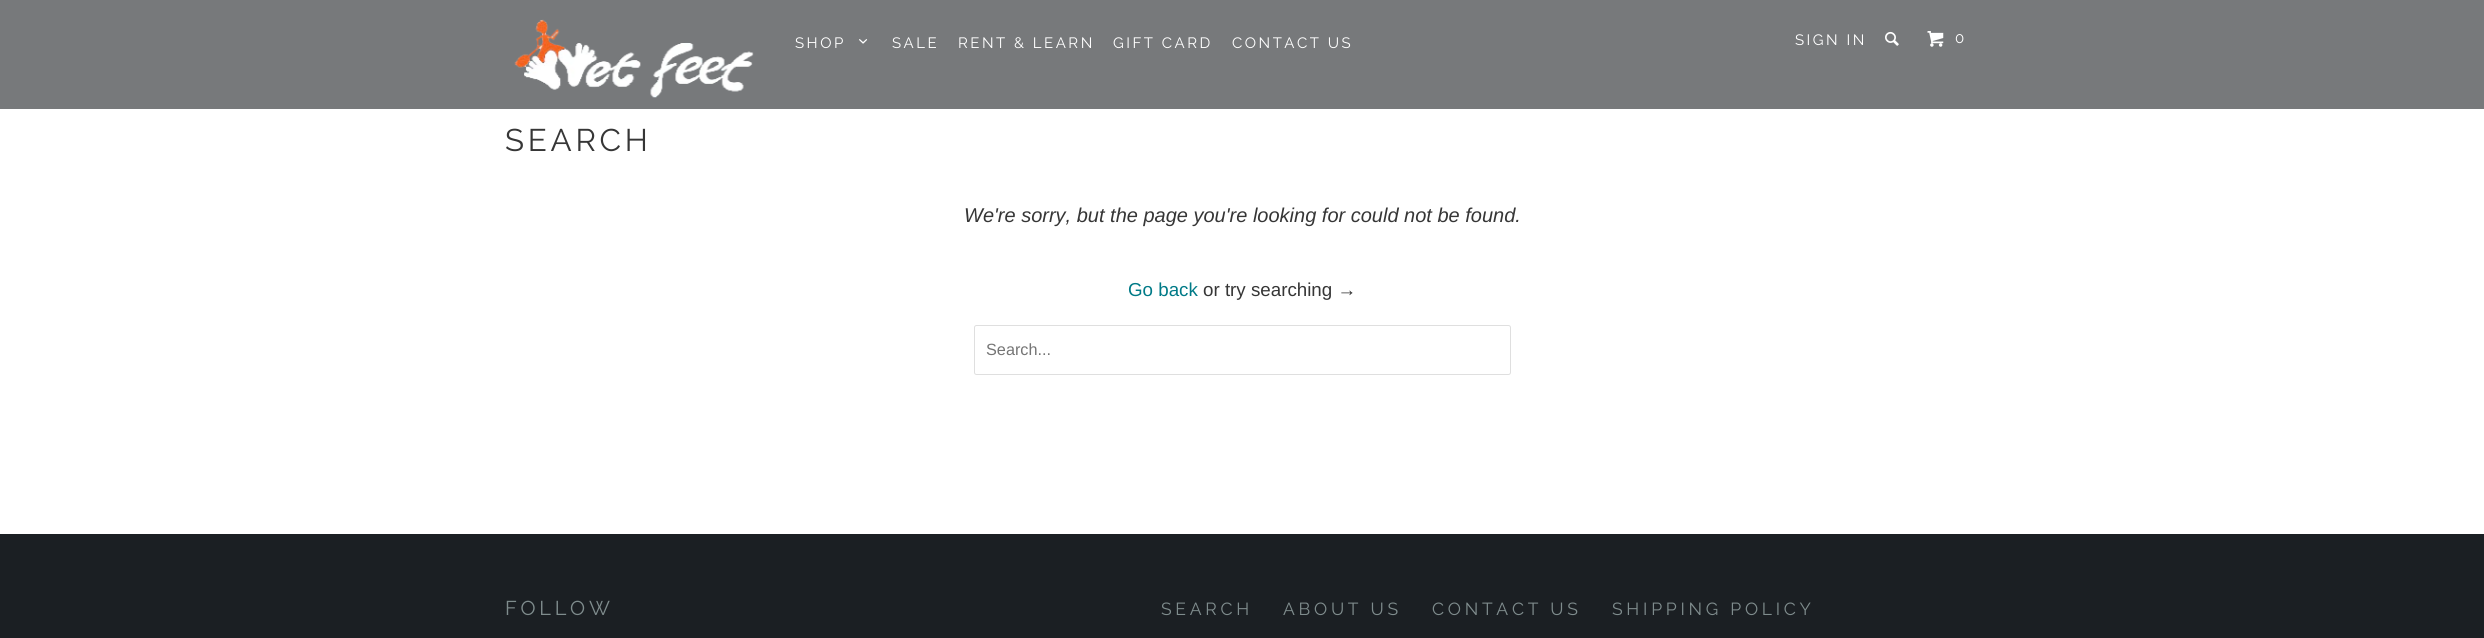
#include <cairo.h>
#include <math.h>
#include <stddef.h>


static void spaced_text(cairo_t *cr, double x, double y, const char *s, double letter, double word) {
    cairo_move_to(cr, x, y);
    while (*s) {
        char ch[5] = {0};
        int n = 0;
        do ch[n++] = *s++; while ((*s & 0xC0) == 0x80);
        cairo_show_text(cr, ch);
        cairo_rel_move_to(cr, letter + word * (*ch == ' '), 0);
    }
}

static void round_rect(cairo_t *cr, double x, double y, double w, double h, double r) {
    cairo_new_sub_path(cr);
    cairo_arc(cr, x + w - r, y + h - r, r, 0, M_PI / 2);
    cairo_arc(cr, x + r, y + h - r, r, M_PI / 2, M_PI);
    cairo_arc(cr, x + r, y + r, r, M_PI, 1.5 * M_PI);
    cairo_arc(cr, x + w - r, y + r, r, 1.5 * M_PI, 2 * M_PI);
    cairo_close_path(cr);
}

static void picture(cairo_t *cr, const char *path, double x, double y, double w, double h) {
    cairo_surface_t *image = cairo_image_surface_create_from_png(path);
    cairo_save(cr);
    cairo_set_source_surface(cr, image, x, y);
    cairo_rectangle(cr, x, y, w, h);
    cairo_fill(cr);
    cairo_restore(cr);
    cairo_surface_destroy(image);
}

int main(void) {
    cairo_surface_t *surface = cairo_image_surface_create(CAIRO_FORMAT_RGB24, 2484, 638);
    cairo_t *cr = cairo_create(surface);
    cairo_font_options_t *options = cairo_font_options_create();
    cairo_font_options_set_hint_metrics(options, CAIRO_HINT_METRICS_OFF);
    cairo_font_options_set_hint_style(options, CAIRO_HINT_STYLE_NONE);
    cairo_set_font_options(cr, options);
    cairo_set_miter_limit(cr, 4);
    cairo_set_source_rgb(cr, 1, 1, 1);
    cairo_paint(cr);
    cairo_set_source_rgb(cr, 0.467, 0.475, 0.482);
    cairo_rectangle(cr, 0, 0, 2484, 109);
    cairo_fill(cr);
    picture(cr, "img1.png", 514, 19, 240, 79);
    cairo_select_font_face(cr, "Raleway", CAIRO_FONT_SLANT_NORMAL, CAIRO_FONT_WEIGHT_NORMAL);
    cairo_set_font_size(cr, 15);
    cairo_set_source_rgb(cr, 1, 1, 1);
    spaced_text(cr, 795, 48, "SHOP", 2.5, 0);
    picture(cr, "img2.png", 859, 39, 9, 5);
    spaced_text(cr, 892, 48, "SALE", 2.5, 0);
    spaced_text(cr, 958, 48, "RENT & LEARN", 2.5, 0);
    spaced_text(cr, 1113, 48, "GIFT CARD", 2.5, 0);
    spaced_text(cr, 1232, 48, "CONTACT US", 2.5, 0);
    spaced_text(cr, 1795, 45, "SIGN IN", 2.5, 0);
    picture(cr, "img3.png", 1885, 31, 14, 15);
    picture(cr, "img4.png", 1927, 31, 17, 16);
    spaced_text(cr, 1955, 43, "0", 2.5, 0);
    cairo_set_font_size(cr, 31.25);
    cairo_set_source_rgb(cr, 0.212, 0.212, 0.212);
    spaced_text(cr, 505, 151, "SEARCH", 3.75, 0);
    cairo_select_font_face(cr, "Liberation Sans", CAIRO_FONT_SLANT_ITALIC, CAIRO_FONT_WEIGHT_NORMAL);
    cairo_set_font_size(cr, 20);
    cairo_move_to(cr, 964, 222);
    cairo_show_text(cr, "We're sorry, but the page you're looking for could not be found.");
    cairo_select_font_face(cr, "Liberation Sans", CAIRO_FONT_SLANT_NORMAL, CAIRO_FONT_WEIGHT_NORMAL);
    cairo_set_font_size(cr, 18.75);
    cairo_set_source_rgb(cr, 0, 0.478, 0.529);
    cairo_move_to(cr, 1128, 296);
    cairo_show_text(cr, "Go back");
    cairo_set_source_rgb(cr, 0.212, 0.212, 0.212);
    cairo_move_to(cr, 1203, 296);
    cairo_show_text(cr, "or try searching →");
    round_rect(cr, 974.5, 325.5, 536, 49, 2);
    cairo_set_source_rgb(cr, 0.875, 0.875, 0.875);
    cairo_set_line_width(cr, 1);
    cairo_stroke(cr);
    cairo_set_font_size(cr, 16.25);
    cairo_set_source_rgb(cr, 0.459, 0.459, 0.459);
    cairo_move_to(cr, 986, 355);
    cairo_show_text(cr, "Search...");
    cairo_set_source_rgb(cr, 0.106, 0.122, 0.137);
    cairo_rectangle(cr, 0, 534, 2484, 104);
    cairo_fill(cr);
    cairo_select_font_face(cr, "Raleway", CAIRO_FONT_SLANT_NORMAL, CAIRO_FONT_WEIGHT_NORMAL);
    cairo_set_font_size(cr, 20);
    cairo_set_source_rgb(cr, 0.498, 0.549, 0.553);
    spaced_text(cr, 505, 615, "FOLLOW", 3.75, 0);
    cairo_set_font_size(cr, 17.5);
    spaced_text(cr, 1161, 615, "SEARCH", 3.75, 0);
    spaced_text(cr, 1283, 615, "ABOUT US", 3.75, 0);
    spaced_text(cr, 1432, 615, "CONTACT US", 3.75, 0);
    spaced_text(cr, 1612, 615, "SHIPPING POLICY", 3.75, 0);
    cairo_surface_write_to_png(surface, "page.png");
    cairo_font_options_destroy(options);
    cairo_destroy(cr);
    cairo_surface_destroy(surface);
    return 0;
}
